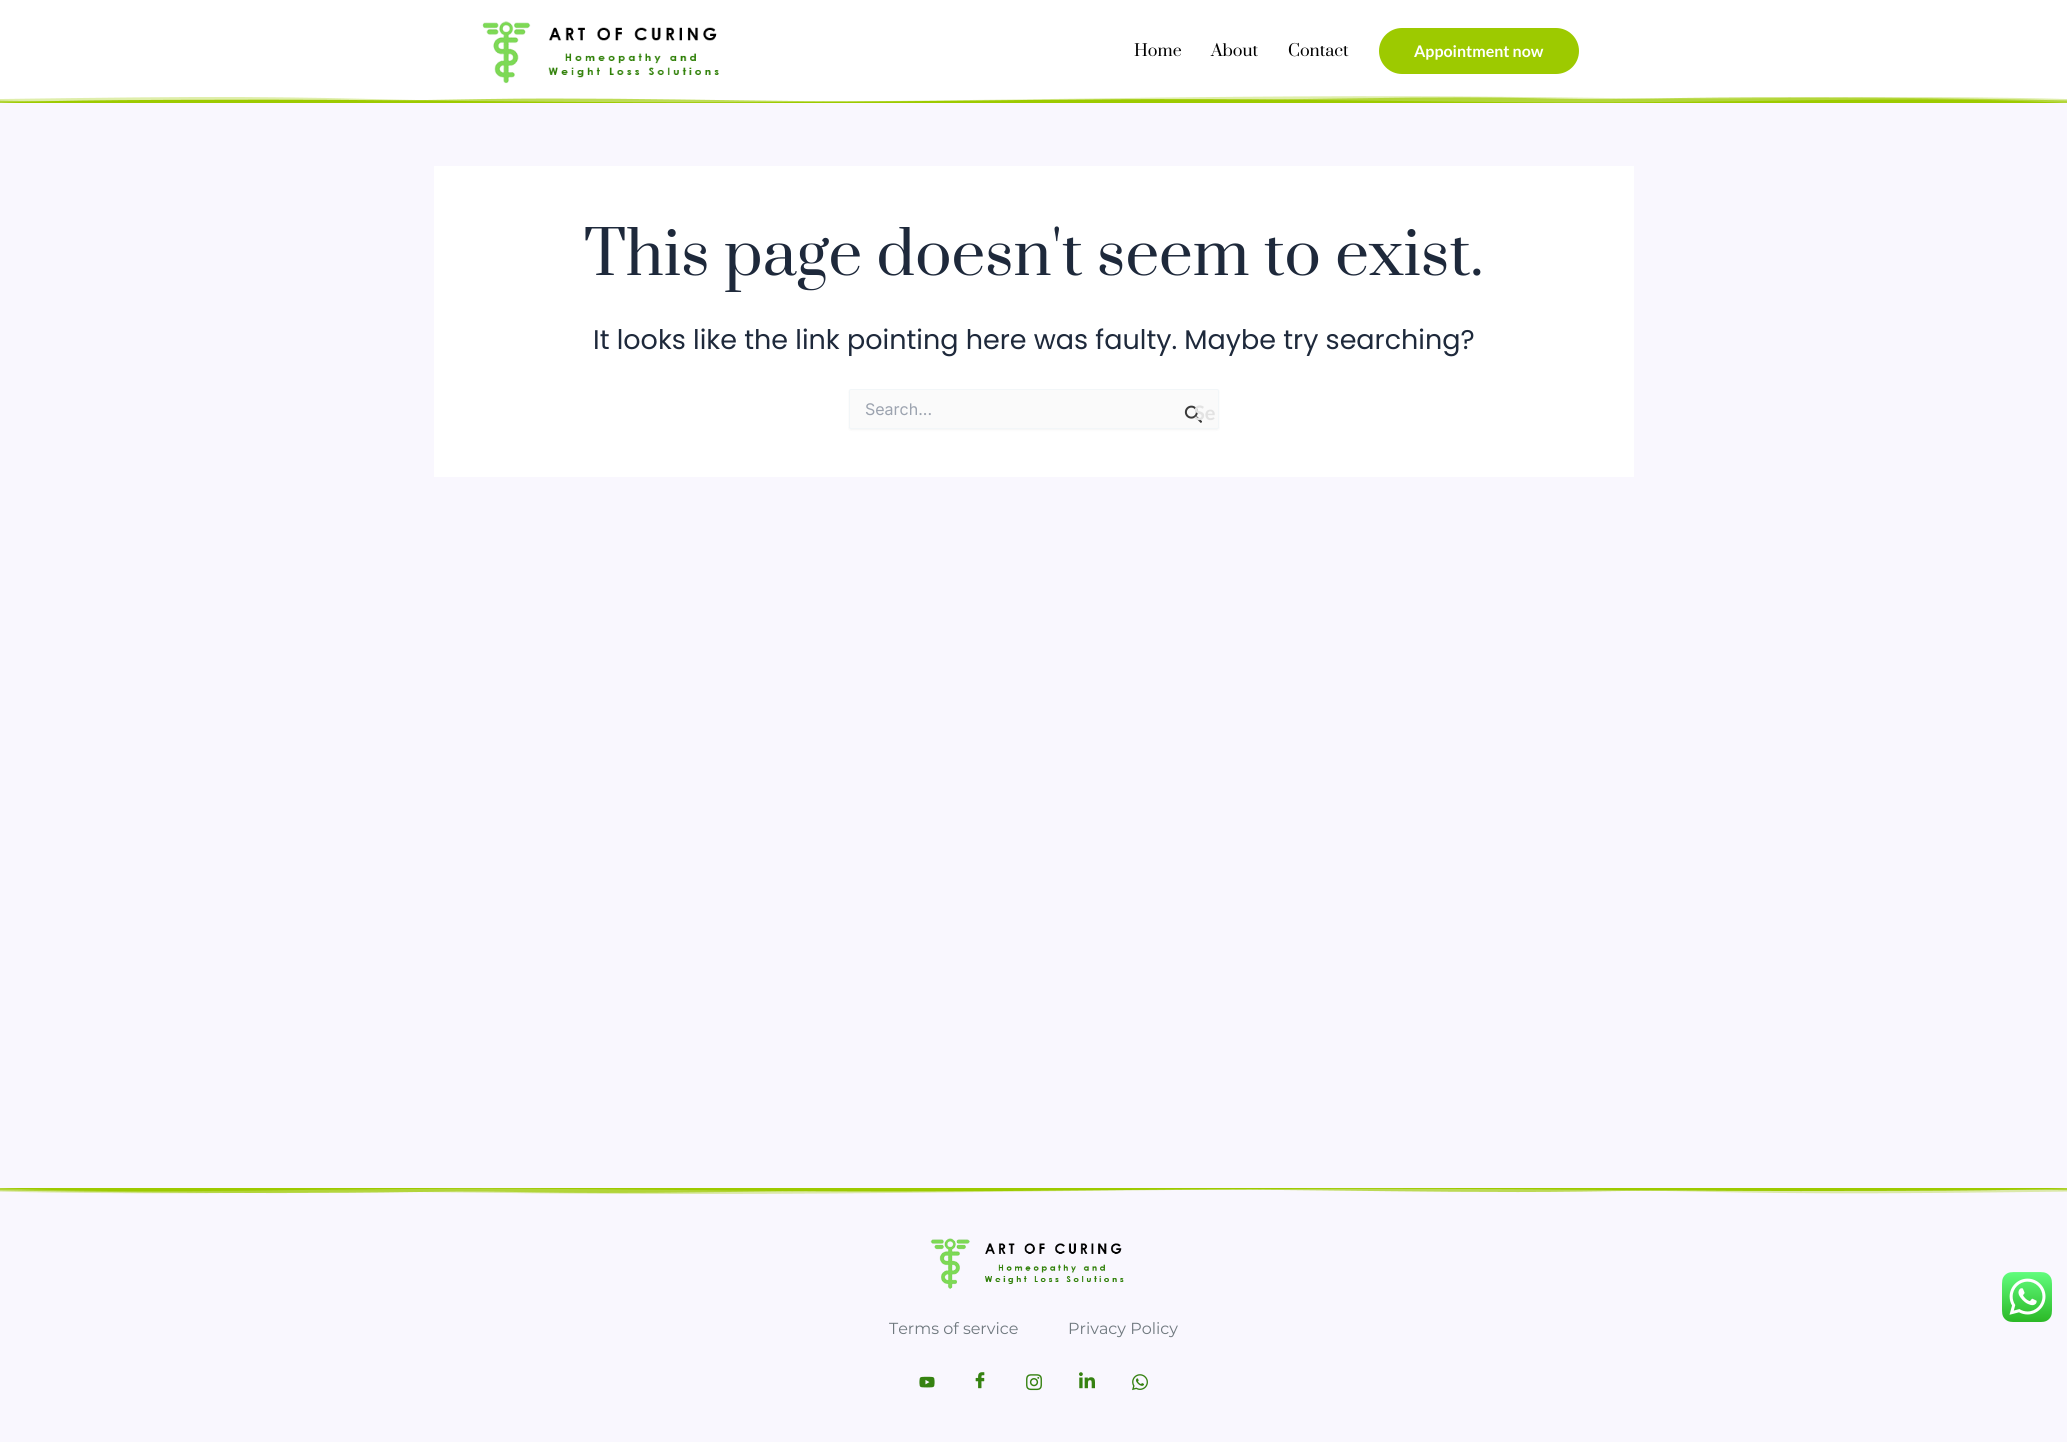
#include <cairo.h>
#include <math.h>
#include <stddef.h>


static void round_rect(cairo_t *cr, double x, double y, double w, double h, double r) {
    cairo_new_sub_path(cr);
    cairo_arc(cr, x + w - r, y + h - r, r, 0, M_PI / 2);
    cairo_arc(cr, x + r, y + h - r, r, M_PI / 2, M_PI);
    cairo_arc(cr, x + r, y + r, r, M_PI, 1.5 * M_PI);
    cairo_arc(cr, x + w - r, y + r, r, 1.5 * M_PI, 2 * M_PI);
    cairo_close_path(cr);
}

static void shadow(cairo_t *cr, double x, double y, double w, double h, double r, double blur, double alpha) {
    cairo_push_group_with_content(cr, CAIRO_CONTENT_ALPHA);
    cairo_set_operator(cr, CAIRO_OPERATOR_SOURCE);
    for (int i = 15; i >= -15 && fmin(w, h) + blur * i / 3 > 0; i -= 2) {
        double e = blur * i / 6;
        cairo_set_source_rgba(cr, 0, 0, 0, alpha * erfc((i - 1) / 8.5) / 2);
        round_rect(cr, x - e, y - e, w + 2 * e, h + 2 * e, fmax(0, fmin(r + e + blur * .6, fmin(w, h) / 2 + e)));
        cairo_fill(cr);
    }
    cairo_pattern_t *soft = cairo_pop_group(cr);
    cairo_mask(cr, soft);
    cairo_pattern_destroy(soft);
}

static void picture(cairo_t *cr, const char *path, double x, double y, double w, double h) {
    cairo_surface_t *image = cairo_image_surface_create_from_png(path);
    cairo_save(cr);
    cairo_set_source_surface(cr, image, x, y);
    cairo_rectangle(cr, x, y, w, h);
    cairo_fill(cr);
    cairo_restore(cr);
    cairo_surface_destroy(image);
}

int main(void) {
    cairo_surface_t *surface = cairo_image_surface_create(CAIRO_FORMAT_RGB24, 2067, 1442);
    cairo_t *cr = cairo_create(surface);
    cairo_font_options_t *options = cairo_font_options_create();
    cairo_font_options_set_hint_metrics(options, CAIRO_HINT_METRICS_OFF);
    cairo_font_options_set_hint_style(options, CAIRO_HINT_STYLE_NONE);
    cairo_set_font_options(cr, options);
    cairo_set_miter_limit(cr, 4);
    cairo_set_source_rgb(cr, 0.976, 0.965, 0.996);
    cairo_paint(cr);
    cairo_set_source_rgb(cr, 1, 1, 1);
    cairo_rectangle(cr, 0, 0, 2067, 102);
    cairo_fill(cr);
    picture(cr, "img1.png", 481, 21, 238, 63);
    cairo_select_font_face(cr, "Prata", CAIRO_FONT_SLANT_NORMAL, CAIRO_FONT_WEIGHT_NORMAL);
    cairo_set_font_size(cr, 16);
    cairo_set_source_rgb(cr, 0, 0, 0);
    cairo_move_to(cr, 1134, 56);
    cairo_show_text(cr, "Home");
    cairo_move_to(cr, 1211, 56);
    cairo_show_text(cr, "About");
    cairo_move_to(cr, 1288, 56);
    cairo_show_text(cr, "Contact");
    cairo_set_source_rgb(cr, 0.616, 0.792, 0);
    round_rect(cr, 1379, 28, 200, 46, 23);
    cairo_fill(cr);
    cairo_select_font_face(cr, "Lato", CAIRO_FONT_SLANT_NORMAL, CAIRO_FONT_WEIGHT_BOLD);
    cairo_set_source_rgb(cr, 1, 1, 1);
    cairo_move_to(cr, 1414, 57);
    cairo_show_text(cr, "Appointment now");
    picture(cr, "img2.png", 0, 96, 2067, 7);
    cairo_rectangle(cr, 434, 166, 1200, 311);
    cairo_fill(cr);
    cairo_select_font_face(cr, "Prata", CAIRO_FONT_SLANT_NORMAL, CAIRO_FONT_WEIGHT_NORMAL);
    cairo_set_font_size(cr, 60);
    cairo_set_source_rgb(cr, 0.118, 0.161, 0.231);
    cairo_move_to(cr, 584, 275);
    cairo_show_text(cr, "This page doesn't seem to exist.");
    cairo_select_font_face(cr, "Poppins", CAIRO_FONT_SLANT_NORMAL, CAIRO_FONT_WEIGHT_NORMAL);
    cairo_set_font_size(cr, 27);
    cairo_move_to(cr, 593, 349);
    cairo_show_text(cr, "It looks like the link pointing here was faulty. Maybe try searching?");
    cairo_set_source_rgb(cr, 0, 0, 0);
    shadow(cr, 849, 390, 370, 40, 2, 1, 0.05);
    cairo_set_source_rgb(cr, 0.98, 0.98, 0.98);
    round_rect(cr, 849.5, 389.5, 369, 39, 1.5);
    cairo_fill_preserve(cr);
    cairo_set_source_rgb(cr, 0.949, 0.961, 0.969);
    cairo_set_line_width(cr, 1);
    cairo_stroke(cr);
    cairo_select_font_face(cr, "Inter", CAIRO_FONT_SLANT_NORMAL, CAIRO_FONT_WEIGHT_NORMAL);
    cairo_set_font_size(cr, 16);
    cairo_set_source_rgb(cr, 0.612, 0.639, 0.686);
    cairo_move_to(cr, 865, 415);
    cairo_show_text(cr, "Search...");
    picture(cr, "img3.png", 1184, 405, 18, 18);
    cairo_select_font_face(cr, "Lato", CAIRO_FONT_SLANT_NORMAL, CAIRO_FONT_WEIGHT_BOLD);
    cairo_set_font_size(cr, 20);
    cairo_set_source_rgb(cr, 0.886, 0.886, 0.886);
    cairo_move_to(cr, 1194, 420);
    cairo_show_text(cr, "Se");
    picture(cr, "img4.png", 0, 1188, 2067, 6);
    picture(cr, "img5.png", 930, 1238, 194, 51);
    cairo_select_font_face(cr, "Montserrat", CAIRO_FONT_SLANT_NORMAL, CAIRO_FONT_WEIGHT_NORMAL);
    cairo_set_font_size(cr, 16);
    cairo_set_source_rgb(cr, 0.435, 0.471, 0.494);
    cairo_move_to(cr, 889, 1334);
    cairo_show_text(cr, "Terms of service");
    cairo_move_to(cr, 1068, 1334);
    cairo_show_text(cr, "Privacy Policy");
    picture(cr, "img6.png", 919, 1376, 16, 12);
    picture(cr, "img7.png", 975, 1372, 10, 17);
    picture(cr, "img8.png", 1026, 1374, 16, 17);
    picture(cr, "img9.png", 1079, 1372, 16, 17);
    picture(cr, "img10.png", 1132, 1374, 16, 17);
    picture(cr, "img11.png", 2002, 1272, 50, 50);
    cairo_surface_write_to_png(surface, "page.png");
    cairo_font_options_destroy(options);
    cairo_destroy(cr);
    cairo_surface_destroy(surface);
    return 0;
}
